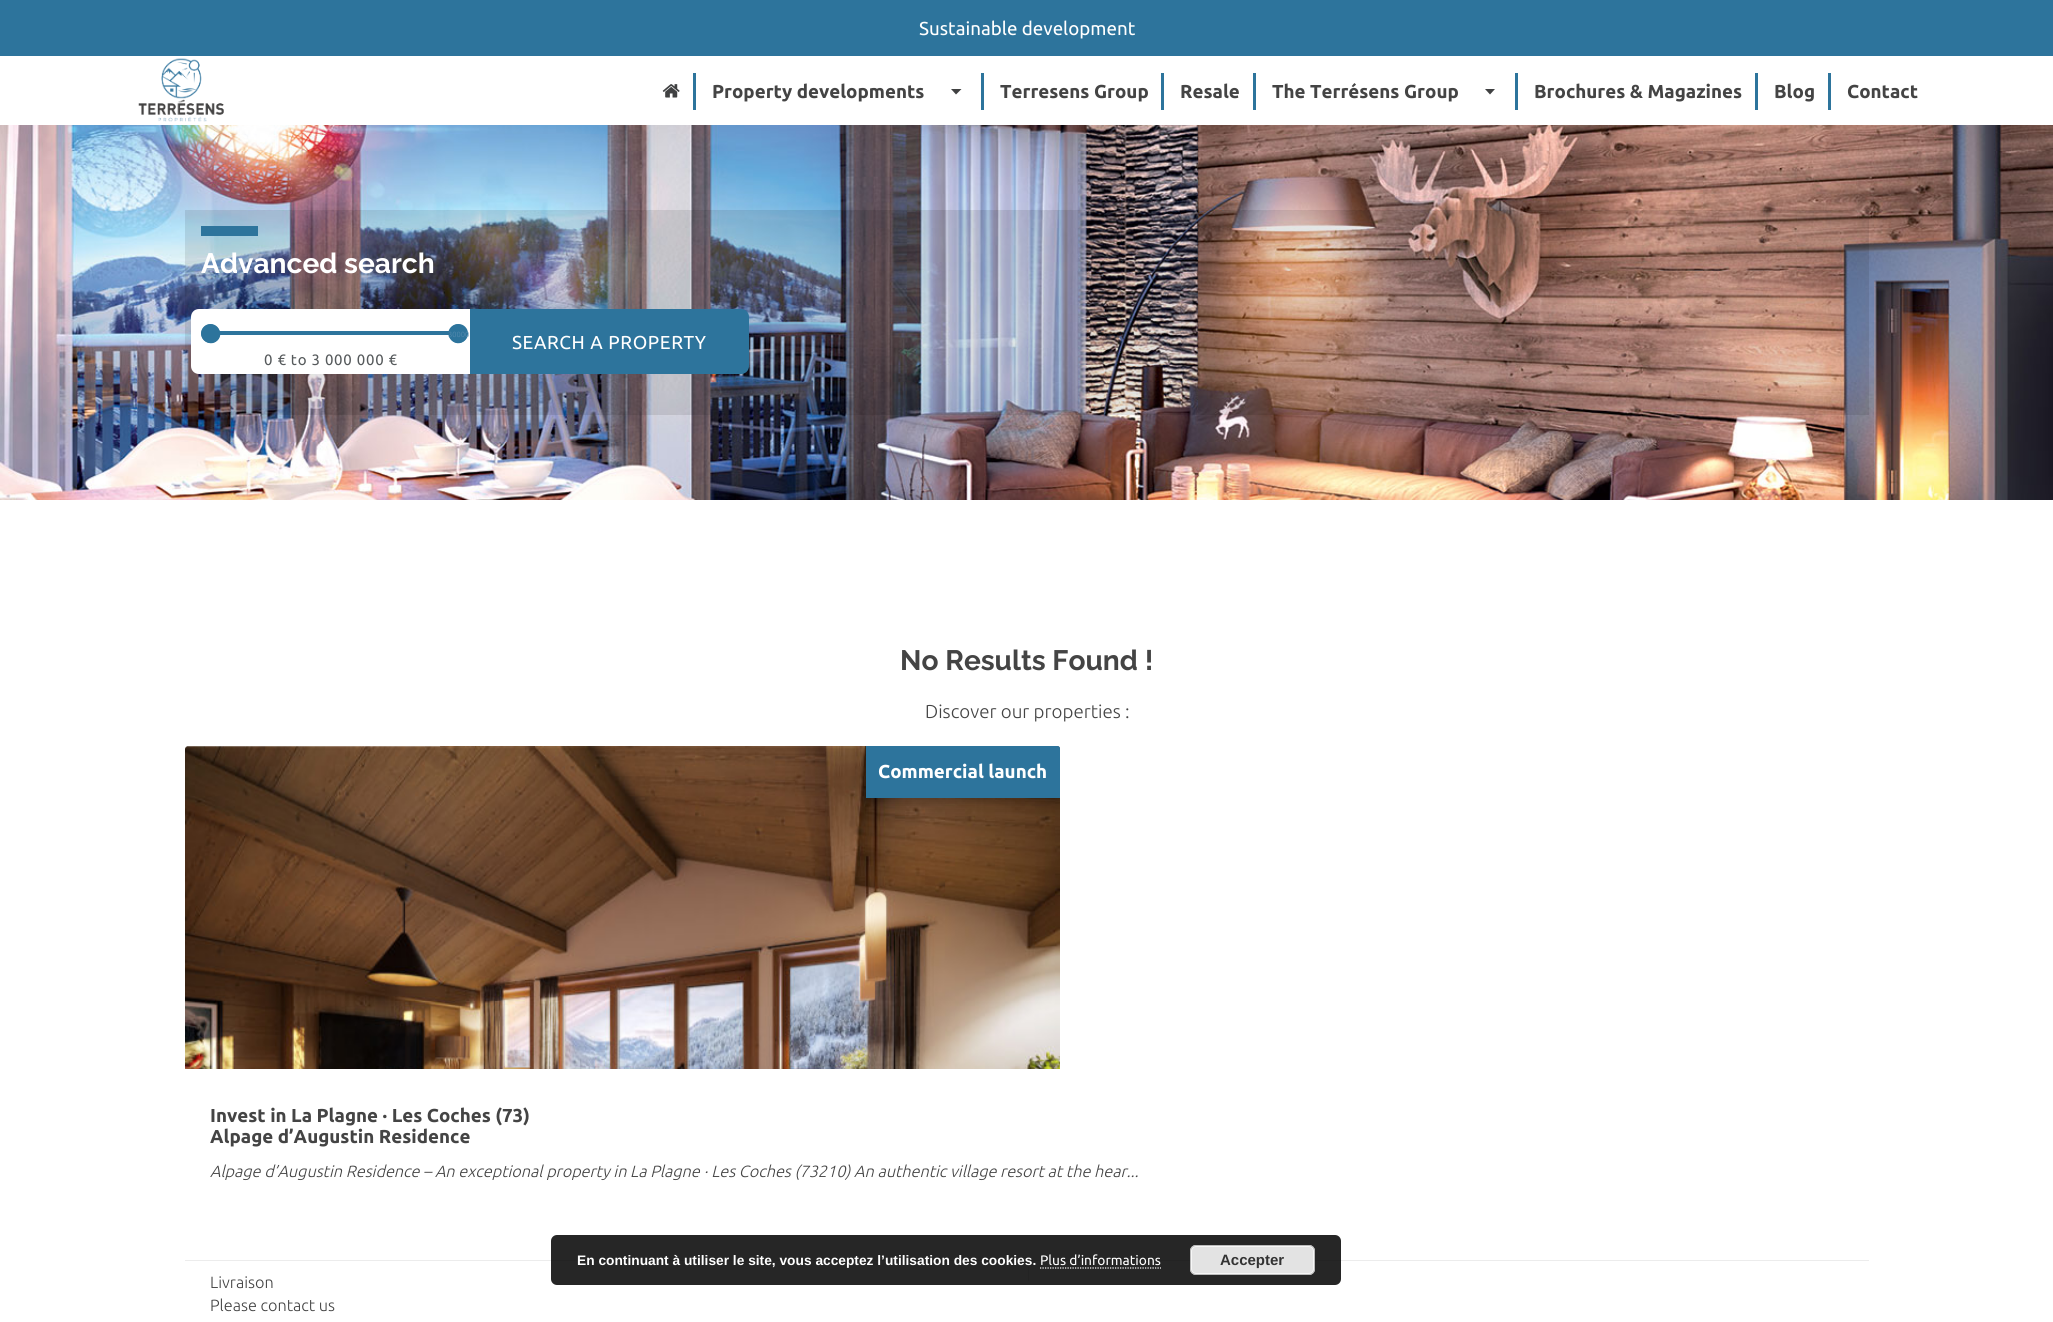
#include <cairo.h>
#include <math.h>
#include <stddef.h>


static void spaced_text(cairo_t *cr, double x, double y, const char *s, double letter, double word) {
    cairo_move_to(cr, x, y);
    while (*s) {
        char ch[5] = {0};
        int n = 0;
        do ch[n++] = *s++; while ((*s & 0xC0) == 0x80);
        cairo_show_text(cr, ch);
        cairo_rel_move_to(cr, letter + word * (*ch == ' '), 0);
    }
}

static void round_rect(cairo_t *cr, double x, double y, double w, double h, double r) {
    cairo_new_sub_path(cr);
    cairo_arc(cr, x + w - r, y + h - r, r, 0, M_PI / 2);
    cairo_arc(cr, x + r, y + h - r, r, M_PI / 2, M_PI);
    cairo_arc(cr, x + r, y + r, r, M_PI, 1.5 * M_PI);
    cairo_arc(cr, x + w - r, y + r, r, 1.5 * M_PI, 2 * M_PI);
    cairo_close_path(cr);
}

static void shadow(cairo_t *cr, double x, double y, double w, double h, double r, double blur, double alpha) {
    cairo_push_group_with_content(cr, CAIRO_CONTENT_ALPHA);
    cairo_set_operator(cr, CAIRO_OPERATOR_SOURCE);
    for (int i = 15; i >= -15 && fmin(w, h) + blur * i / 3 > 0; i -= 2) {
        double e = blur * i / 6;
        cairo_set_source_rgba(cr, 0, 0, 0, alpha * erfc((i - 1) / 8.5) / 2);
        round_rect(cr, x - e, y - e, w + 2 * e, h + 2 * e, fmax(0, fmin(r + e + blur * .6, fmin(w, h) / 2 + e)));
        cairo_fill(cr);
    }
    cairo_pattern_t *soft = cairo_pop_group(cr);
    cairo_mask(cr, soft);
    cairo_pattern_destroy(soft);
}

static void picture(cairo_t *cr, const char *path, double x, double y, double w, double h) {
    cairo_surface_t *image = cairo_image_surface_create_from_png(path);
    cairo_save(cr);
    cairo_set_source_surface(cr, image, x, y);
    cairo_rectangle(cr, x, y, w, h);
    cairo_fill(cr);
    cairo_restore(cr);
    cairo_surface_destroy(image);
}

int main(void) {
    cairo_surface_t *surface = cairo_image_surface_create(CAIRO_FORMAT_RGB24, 2053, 1322);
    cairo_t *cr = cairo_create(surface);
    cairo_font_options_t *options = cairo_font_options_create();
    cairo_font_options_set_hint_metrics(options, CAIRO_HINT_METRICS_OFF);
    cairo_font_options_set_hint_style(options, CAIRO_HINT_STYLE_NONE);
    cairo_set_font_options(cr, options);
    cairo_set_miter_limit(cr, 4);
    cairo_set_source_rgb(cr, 1, 1, 1);
    cairo_paint(cr);
    cairo_set_source_rgb(cr, 0.176, 0.455, 0.612);
    cairo_rectangle(cr, 0, 0, 2053, 56);
    cairo_fill(cr);
    cairo_select_font_face(cr, "Ubuntu", CAIRO_FONT_SLANT_NORMAL, CAIRO_FONT_WEIGHT_NORMAL);
    cairo_set_font_size(cr, 18.75);
    cairo_set_source_rgb(cr, 1, 1, 1);
    cairo_move_to(cr, 919, 35);
    cairo_show_text(cr, "Sustainable development");
    picture(cr, "img1.png", 138, 58, 86, 64);
    cairo_set_source_rgb(cr, 0.176, 0.455, 0.612);
    cairo_rectangle(cr, 693, 73, 3, 37);
    cairo_fill(cr);
    picture(cr, "img2.png", 662, 84, 18, 14);
    cairo_rectangle(cr, 981, 73, 3, 37);
    cairo_fill(cr);
    cairo_select_font_face(cr, "Ubuntu", CAIRO_FONT_SLANT_NORMAL, CAIRO_FONT_WEIGHT_BOLD);
    cairo_set_source_rgb(cr, 0.267, 0.267, 0.267);
    cairo_move_to(cr, 712, 98);
    cairo_show_text(cr, "Property developments");
    cairo_set_source_rgb(cr, 0.251, 0.255, 0.259);
    cairo_new_path(cr);
    cairo_move_to(cr, 951, 89);
    cairo_line_to(cr, 961.5, 89);
    cairo_line_to(cr, 956, 94.5);
    cairo_close_path(cr);
    cairo_fill(cr);
    cairo_set_source_rgb(cr, 0.176, 0.455, 0.612);
    cairo_rectangle(cr, 1161, 73, 3, 37);
    cairo_fill(cr);
    cairo_set_source_rgb(cr, 0.267, 0.267, 0.267);
    cairo_move_to(cr, 1000, 98);
    cairo_show_text(cr, "Terresens Group");
    cairo_set_source_rgb(cr, 0.176, 0.455, 0.612);
    cairo_rectangle(cr, 1253, 73, 3, 37);
    cairo_fill(cr);
    cairo_set_source_rgb(cr, 0.267, 0.267, 0.267);
    cairo_move_to(cr, 1180, 98);
    cairo_show_text(cr, "Resale");
    cairo_set_source_rgb(cr, 0.176, 0.455, 0.612);
    cairo_rectangle(cr, 1515, 73, 3, 37);
    cairo_fill(cr);
    cairo_set_source_rgb(cr, 0.267, 0.267, 0.267);
    cairo_move_to(cr, 1272, 98);
    cairo_show_text(cr, "The Terrésens Group");
    cairo_set_source_rgb(cr, 0.251, 0.255, 0.259);
    cairo_new_path(cr);
    cairo_move_to(cr, 1485, 89);
    cairo_line_to(cr, 1495, 89);
    cairo_line_to(cr, 1490, 94.5);
    cairo_close_path(cr);
    cairo_fill(cr);
    cairo_set_source_rgb(cr, 0.176, 0.455, 0.612);
    cairo_rectangle(cr, 1755, 73, 3, 37);
    cairo_fill(cr);
    cairo_set_source_rgb(cr, 0.267, 0.267, 0.267);
    cairo_move_to(cr, 1534, 98);
    cairo_show_text(cr, "Brochures & Magazines");
    cairo_set_source_rgb(cr, 0.176, 0.455, 0.612);
    cairo_rectangle(cr, 1828, 73, 3, 37);
    cairo_fill(cr);
    cairo_set_source_rgb(cr, 0.267, 0.267, 0.267);
    cairo_move_to(cr, 1774, 98);
    cairo_show_text(cr, "Blog");
    cairo_move_to(cr, 1847, 98);
    cairo_show_text(cr, "Contact");
    picture(cr, "img3.png", 0, 125, 2053, 375);
    cairo_set_source_rgba(cr, 0, 0, 0, 0.1);
    cairo_rectangle(cr, 185, 210, 1684, 205);
    cairo_fill(cr);
    cairo_set_source_rgb(cr, 0.176, 0.455, 0.612);
    cairo_rectangle(cr, 201, 226, 57, 10);
    cairo_fill(cr);
    cairo_select_font_face(cr, "Raleway", CAIRO_FONT_SLANT_NORMAL, CAIRO_FONT_WEIGHT_BOLD);
    cairo_set_font_size(cr, 28.1);
    cairo_set_source_rgb(cr, 1, 1, 1);
    cairo_move_to(cr, 201, 273);
    cairo_show_text(cr, "Advanced search");
    cairo_new_path(cr);
    cairo_move_to(cr, 199, 309);
    cairo_line_to(cr, 470, 309);
    cairo_line_to(cr, 470, 374);
    cairo_line_to(cr, 199, 374);
    cairo_curve_to(cr, 194.5, 374, 191, 370.5, 191, 366);
    cairo_line_to(cr, 191, 317);
    cairo_curve_to(cr, 191, 312.5, 194.5, 309, 199, 309);
    cairo_close_path(cr);
    cairo_fill(cr);
    cairo_set_source_rgb(cr, 0.176, 0.455, 0.612);
    cairo_rectangle(cr, 219, 331, 236, 4);
    cairo_fill(cr);
    cairo_arc(cr, 210.5, 333.5, 9.5, 0, 2 * M_PI);
    cairo_fill(cr);
    cairo_new_path(cr);
    cairo_move_to(cr, 204, 327);
    cairo_curve_to(cr, 213, 318.5, 226, 332, 217.5, 340.5);
    cairo_curve_to(cr, 208.5, 349, 195.5, 336, 204, 327);
    cairo_close_path(cr);
    cairo_fill(cr);
    cairo_arc(cr, 458.5, 333.5, 9.5, 0, 2 * M_PI);
    cairo_fill(cr);
    cairo_new_path(cr);
    cairo_move_to(cr, 451, 327);
    cairo_curve_to(cr, 460, 318.5, 473, 332, 464.5, 340.5);
    cairo_curve_to(cr, 456, 349, 442.5, 336, 451, 327);
    cairo_close_path(cr);
    cairo_fill(cr);
    cairo_select_font_face(cr, "Ubuntu Light", CAIRO_FONT_SLANT_NORMAL, CAIRO_FONT_WEIGHT_NORMAL);
    cairo_set_font_size(cr, 7.5);
    cairo_set_source_rgb(cr, 0.341, 0.545, 0.686);
    cairo_move_to(cr, 448, 337);
    cairo_show_text(cr, "30000");
    cairo_select_font_face(cr, "Ubuntu", CAIRO_FONT_SLANT_NORMAL, CAIRO_FONT_WEIGHT_NORMAL);
    cairo_set_font_size(cr, 15);
    cairo_set_source_rgb(cr, 0.337, 0.353, 0.361);
    spaced_text(cr, 264, 365, "0 € to 3 000 000 €", 0.75, 0);
    cairo_set_source_rgb(cr, 0.176, 0.455, 0.612);
    cairo_new_path(cr);
    cairo_move_to(cr, 470, 309);
    cairo_line_to(cr, 741, 309);
    cairo_curve_to(cr, 745.5, 309, 749, 312.5, 749, 317);
    cairo_line_to(cr, 749, 366);
    cairo_curve_to(cr, 749, 370.5, 745.5, 374, 741, 374);
    cairo_line_to(cr, 470, 374);
    cairo_close_path(cr);
    cairo_fill(cr);
    cairo_set_font_size(cr, 18.75);
    cairo_set_source_rgb(cr, 1, 1, 1);
    spaced_text(cr, 512, 349, "SEARCH A PROPERTY", 0.6, 0);
    cairo_select_font_face(cr, "Raleway", CAIRO_FONT_SLANT_NORMAL, CAIRO_FONT_WEIGHT_BOLD);
    cairo_set_font_size(cr, 28.1);
    cairo_set_source_rgb(cr, 0.267, 0.267, 0.267);
    cairo_move_to(cr, 900, 670);
    cairo_show_text(cr, "No Results Found !");
    cairo_select_font_face(cr, "Ubuntu Light", CAIRO_FONT_SLANT_NORMAL, CAIRO_FONT_WEIGHT_NORMAL);
    cairo_set_font_size(cr, 18.75);
    cairo_move_to(cr, 925, 718);
    cairo_show_text(cr, "Discover our properties :");
    picture(cr, "img4.png", 185, 746, 875, 323);
    cairo_save(cr);
    cairo_new_path(cr);
    cairo_move_to(cr, 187.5, 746);
    cairo_line_to(cr, 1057.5, 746);
    cairo_curve_to(cr, 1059, 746, 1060, 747, 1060, 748.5);
    cairo_line_to(cr, 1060, 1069);
    cairo_line_to(cr, 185, 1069);
    cairo_line_to(cr, 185, 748.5);
    cairo_curve_to(cr, 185, 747, 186, 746, 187.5, 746);
    cairo_close_path(cr);
    cairo_clip(cr);
    cairo_set_source_rgb(cr, 0, 0, 0);
    shadow(cr, 866, 751, 194, 52, 0, 6, 0.2);
    cairo_restore(cr);
    cairo_set_source_rgb(cr, 0.176, 0.455, 0.612);
    cairo_new_path(cr);
    cairo_move_to(cr, 866, 746);
    cairo_line_to(cr, 1057.5, 746);
    cairo_curve_to(cr, 1059, 746, 1060, 747, 1060, 748.5);
    cairo_line_to(cr, 1060, 798);
    cairo_line_to(cr, 866, 798);
    cairo_close_path(cr);
    cairo_fill(cr);
    cairo_select_font_face(cr, "Ubuntu", CAIRO_FONT_SLANT_NORMAL, CAIRO_FONT_WEIGHT_BOLD);
    cairo_set_source_rgb(cr, 1, 1, 1);
    cairo_move_to(cr, 878, 778);
    cairo_show_text(cr, "Commercial launch");
    cairo_set_source_rgb(cr, 0.267, 0.267, 0.267);
    cairo_move_to(cr, 210, 1122);
    cairo_show_text(cr, "Invest in La Plagne · Les Coches (73)");
    cairo_move_to(cr, 210, 1143);
    cairo_show_text(cr, "Alpage d’Augustin Residence");
    cairo_select_font_face(cr, "Ubuntu Light", CAIRO_FONT_SLANT_ITALIC, CAIRO_FONT_WEIGHT_NORMAL);
    cairo_set_font_size(cr, 16.25);
    cairo_move_to(cr, 210, 1177);
    cairo_show_text(cr, "Alpage d’Augustin Residence – An exceptional property in La Plagne · Les Coches (73210) An authentic village resort at the hear...");
    cairo_set_source_rgb(cr, 0.925, 0.925, 0.925);
    cairo_rectangle(cr, 185, 1260, 1684, 1);
    cairo_fill(cr);
    cairo_rectangle(cr, 1028, 1261, 1, 20);
    cairo_fill(cr);
    cairo_select_font_face(cr, "Ubuntu Light", CAIRO_FONT_SLANT_NORMAL, CAIRO_FONT_WEIGHT_NORMAL);
    cairo_set_source_rgb(cr, 0.267, 0.267, 0.267);
    cairo_move_to(cr, 210, 1288);
    cairo_show_text(cr, "Livraison");
    cairo_move_to(cr, 210, 1311);
    cairo_show_text(cr, "Please contact us");
    cairo_set_source_rgba(cr, 0, 0, 0, 0.85);
    round_rect(cr, 551, 1235, 790, 50, 6);
    cairo_fill(cr);
    cairo_select_font_face(cr, "Liberation Sans", CAIRO_FONT_SLANT_NORMAL, CAIRO_FONT_WEIGHT_BOLD);
    cairo_set_font_size(cr, 13.75);
    cairo_set_source_rgb(cr, 1, 1, 1);
    cairo_move_to(cr, 577, 1265);
    cairo_show_text(cr, "En continuant à utiliser le site, vous acceptez l’utilisation des cookies.");
    cairo_select_font_face(cr, "Ubuntu", CAIRO_FONT_SLANT_NORMAL, CAIRO_FONT_WEIGHT_NORMAL);
    cairo_move_to(cr, 1040, 1265);
    cairo_show_text(cr, "Plus d’informations");
    cairo_new_path(cr);
    cairo_move_to(cr, 1040, 1268);
    cairo_line_to(cr, 1161, 1268);
    cairo_set_line_width(cr, 1.2);
    cairo_set_dash(cr, (double[]){1.25, 1.25}, 2, 0);
    cairo_stroke(cr);
    cairo_set_source_rgb(cr, 0.89, 0.89, 0.89);
    round_rect(cr, 1190, 1245, 125, 30, 6);
    cairo_fill(cr);
    round_rect(cr, 1191.5, 1246.5, 122, 27, 4.5);
    cairo_set_source_rgb(cr, 0.965, 0.965, 0.965);
    cairo_set_line_width(cr, 1);
    cairo_set_dash(cr, NULL, 0, 0);
    cairo_stroke(cr);
    round_rect(cr, 1190.5, 1245.5, 124, 29, 5.5);
    cairo_set_source_rgb(cr, 0.733, 0.733, 0.733);
    cairo_stroke(cr);
    cairo_select_font_face(cr, "Liberation Sans", CAIRO_FONT_SLANT_NORMAL, CAIRO_FONT_WEIGHT_BOLD);
    cairo_set_font_size(cr, 15);
    cairo_set_source_rgb(cr, 0.2, 0.2, 0.2);
    cairo_move_to(cr, 1220, 1265);
    cairo_show_text(cr, "Accepter");
    cairo_surface_write_to_png(surface, "page.png");
    cairo_font_options_destroy(options);
    cairo_destroy(cr);
    cairo_surface_destroy(surface);
    return 0;
}
